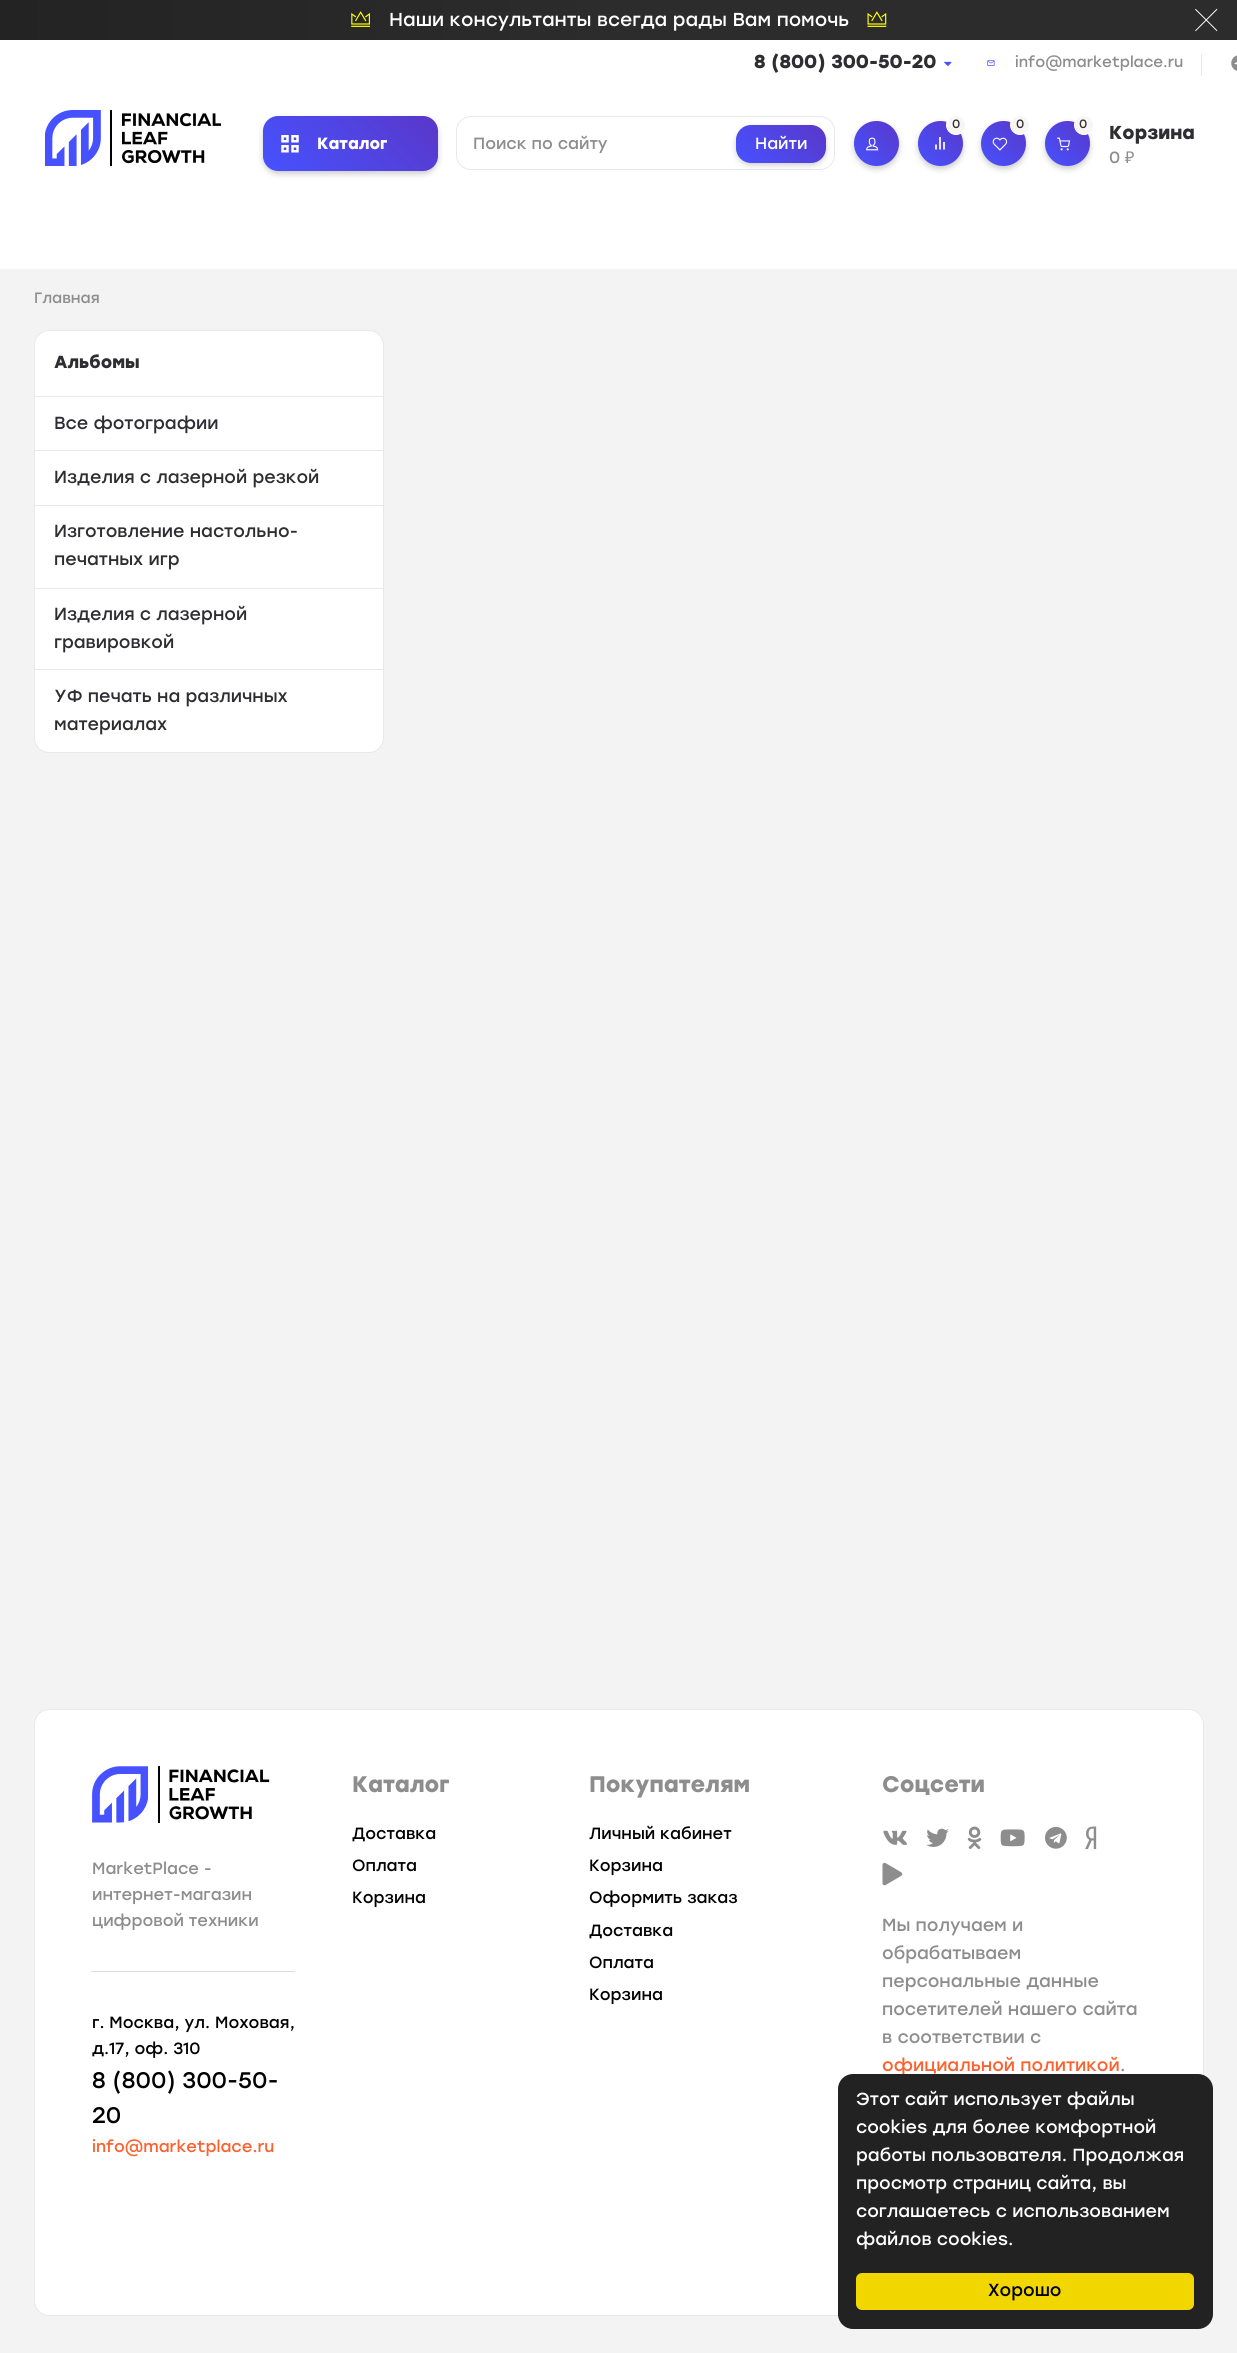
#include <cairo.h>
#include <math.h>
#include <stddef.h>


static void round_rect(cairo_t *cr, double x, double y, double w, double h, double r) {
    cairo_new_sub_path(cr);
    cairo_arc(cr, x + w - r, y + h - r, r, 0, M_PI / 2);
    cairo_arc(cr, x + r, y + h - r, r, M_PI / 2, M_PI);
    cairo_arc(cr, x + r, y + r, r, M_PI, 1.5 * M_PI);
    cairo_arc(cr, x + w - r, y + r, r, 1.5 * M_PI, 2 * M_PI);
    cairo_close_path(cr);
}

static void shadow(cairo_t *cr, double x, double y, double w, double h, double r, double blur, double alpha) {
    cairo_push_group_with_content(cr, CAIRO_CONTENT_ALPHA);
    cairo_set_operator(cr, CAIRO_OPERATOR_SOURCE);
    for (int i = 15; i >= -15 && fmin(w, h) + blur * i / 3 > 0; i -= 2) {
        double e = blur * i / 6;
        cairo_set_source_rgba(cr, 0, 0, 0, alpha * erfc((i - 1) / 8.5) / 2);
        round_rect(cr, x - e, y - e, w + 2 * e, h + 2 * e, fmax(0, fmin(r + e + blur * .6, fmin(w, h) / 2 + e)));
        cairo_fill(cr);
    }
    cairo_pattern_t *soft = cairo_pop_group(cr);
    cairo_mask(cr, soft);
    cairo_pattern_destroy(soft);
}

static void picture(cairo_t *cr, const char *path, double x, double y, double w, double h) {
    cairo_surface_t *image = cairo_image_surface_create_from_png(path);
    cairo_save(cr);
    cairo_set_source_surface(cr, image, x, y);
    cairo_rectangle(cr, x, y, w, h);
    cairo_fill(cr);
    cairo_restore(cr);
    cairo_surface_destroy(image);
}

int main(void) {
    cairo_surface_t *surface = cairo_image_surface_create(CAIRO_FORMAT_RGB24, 1237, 2353);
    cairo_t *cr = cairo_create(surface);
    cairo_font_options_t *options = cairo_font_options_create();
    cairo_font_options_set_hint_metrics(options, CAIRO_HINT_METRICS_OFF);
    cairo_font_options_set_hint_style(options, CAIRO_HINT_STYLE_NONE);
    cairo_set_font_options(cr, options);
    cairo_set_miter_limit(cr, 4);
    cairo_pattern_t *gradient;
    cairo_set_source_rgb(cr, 0.953, 0.953, 0.953);
    cairo_paint(cr);
    gradient = cairo_pattern_create_linear(0, 20, 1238, 20);
    cairo_pattern_add_color_stop_rgba(gradient, 0, 0.137, 0.137, 0.137, 1);
    cairo_pattern_add_color_stop_rgba(gradient, 0.5, 0.173, 0.173, 0.173, 1);
    cairo_set_source(cr, gradient);
    cairo_pattern_destroy(gradient);
    cairo_rectangle(cr, 0, 0, 1237, 40);
    cairo_fill(cr);
    picture(cr, "img1.png", 351, 11, 19, 16);
    cairo_select_font_face(cr, "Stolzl", CAIRO_FONT_SLANT_NORMAL, CAIRO_FONT_WEIGHT_NORMAL);
    cairo_set_font_size(cr, 18.75);
    cairo_set_source_rgb(cr, 1, 1, 1);
    cairo_move_to(cr, 389, 26);
    cairo_show_text(cr, "Наши консультанты всегда рады Вам помочь");
    picture(cr, "img2.png", 867, 11, 20, 16);
    picture(cr, "img3.png", 1195, 8, 23, 24);
    cairo_rectangle(cr, 0, 40, 1237, 229);
    cairo_fill(cr);
    cairo_select_font_face(cr, "Stolzl", CAIRO_FONT_SLANT_NORMAL, CAIRO_FONT_WEIGHT_BOLD);
    cairo_set_source_rgb(cr, 0.176, 0.176, 0.196);
    cairo_move_to(cr, 754, 68);
    cairo_show_text(cr, "8 (800) 300-50-20");
    picture(cr, "img4.png", 944, 61, 8, 5);
    picture(cr, "img5.png", 987, 60, 8, 6);
    cairo_select_font_face(cr, "Stolzl", CAIRO_FONT_SLANT_NORMAL, CAIRO_FONT_WEIGHT_NORMAL);
    cairo_set_font_size(cr, 15);
    cairo_set_source_rgb(cr, 0.553, 0.553, 0.553);
    cairo_move_to(cr, 1015, 67);
    cairo_show_text(cr, "info@marketplace.ru");
    cairo_set_source_rgb(cr, 0.91, 0.91, 0.91);
    cairo_rectangle(cr, 1201, 54, 1, 22);
    cairo_fill(cr);
    picture(cr, "img6.png", 1231, 55, 6, 16);
    picture(cr, "img7.png", 45, 110, 176, 56);
    cairo_set_source_rgb(cr, 0, 0, 0);
    shadow(cr, 263, 119, 175, 55, 15, 3, 0.2);
    gradient = cairo_pattern_create_linear(293, 201, 408, 86);
    cairo_pattern_add_color_stop_rgba(gradient, 0, 0.275, 0.322, 1, 1);
    cairo_pattern_add_color_stop_rgba(gradient, 1, 0.353, 0.216, 0.788, 1);
    cairo_set_source(cr, gradient);
    cairo_pattern_destroy(gradient);
    round_rect(cr, 263, 116, 175, 55, 15);
    cairo_fill(cr);
    picture(cr, "img8.png", 281, 135, 18, 18);
    cairo_select_font_face(cr, "Stolzl", CAIRO_FONT_SLANT_NORMAL, CAIRO_FONT_WEIGHT_BOLD);
    cairo_set_font_size(cr, 16.25);
    cairo_set_source_rgb(cr, 1, 1, 1);
    cairo_move_to(cr, 317, 149);
    cairo_show_text(cr, "Каталог");
    round_rect(cr, 456.5, 116.5, 378, 53, 14.5);
    cairo_set_source_rgb(cr, 0.91, 0.91, 0.91);
    cairo_set_line_width(cr, 1);
    cairo_stroke(cr);
    cairo_select_font_face(cr, "Stolzl", CAIRO_FONT_SLANT_NORMAL, CAIRO_FONT_WEIGHT_NORMAL);
    cairo_set_source_rgb(cr, 0.553, 0.553, 0.553);
    cairo_move_to(cr, 473, 149);
    cairo_show_text(cr, "Поиск по сайту");
    cairo_set_source_rgb(cr, 0, 0, 0);
    shadow(cr, 736, 128, 90, 37, 15, 3, 0.2);
    gradient = cairo_pattern_create_linear(749, 176, 813, 112);
    cairo_pattern_add_color_stop_rgba(gradient, 0, 0.275, 0.322, 1, 1);
    cairo_pattern_add_color_stop_rgba(gradient, 1, 0.353, 0.216, 0.788, 1);
    cairo_set_source(cr, gradient);
    cairo_pattern_destroy(gradient);
    round_rect(cr, 736, 125, 90, 38, 15);
    cairo_fill(cr);
    cairo_set_source_rgb(cr, 1, 1, 1);
    cairo_move_to(cr, 755, 149);
    cairo_show_text(cr, "Найти");
    cairo_set_source_rgb(cr, 0, 0, 0);
    shadow(cr, 854, 124, 45, 45, 22.5, 3, 0.2);
    gradient = cairo_pattern_create_linear(854, 166, 899, 121);
    cairo_pattern_add_color_stop_rgba(gradient, 0, 0.275, 0.322, 1, 1);
    cairo_pattern_add_color_stop_rgba(gradient, 1, 0.353, 0.216, 0.788, 1);
    cairo_set_source(cr, gradient);
    cairo_pattern_destroy(gradient);
    cairo_arc(cr, 876.5, 143.5, 22.5, 0, 2 * M_PI);
    cairo_fill(cr);
    picture(cr, "img9.png", 866, 137, 13, 14);
    cairo_set_source_rgb(cr, 0, 0, 0);
    shadow(cr, 918, 124, 45, 45, 22.5, 3, 0.2);
    gradient = cairo_pattern_create_linear(918, 166, 963, 121);
    cairo_pattern_add_color_stop_rgba(gradient, 0, 0.275, 0.322, 1, 1);
    cairo_pattern_add_color_stop_rgba(gradient, 1, 0.353, 0.216, 0.788, 1);
    cairo_set_source(cr, gradient);
    cairo_pattern_destroy(gradient);
    cairo_arc(cr, 940.5, 143.5, 22.5, 0, 2 * M_PI);
    cairo_fill(cr);
    cairo_set_source_rgb(cr, 0.965, 0.961, 0.953);
    cairo_arc(cr, 956, 125, 9.5, 0, 2 * M_PI);
    cairo_fill_preserve(cr);
    cairo_set_source_rgb(cr, 1, 1, 1);
    cairo_stroke(cr);
    cairo_set_font_size(cr, 12);
    cairo_set_source_rgb(cr, 0.176, 0.176, 0.196);
    cairo_move_to(cr, 952, 128);
    cairo_show_text(cr, "0");
    cairo_new_path(cr);
    cairo_move_to(cr, 940, 137);
    cairo_line_to(cr, 940, 149.5);
    cairo_move_to(cr, 944, 142);
    cairo_line_to(cr, 944, 149.5);
    cairo_move_to(cr, 936, 144.5);
    cairo_line_to(cr, 936, 149.5);
    cairo_set_source_rgb(cr, 1, 1, 1);
    cairo_set_line_width(cr, 1.7);
    cairo_stroke(cr);
    cairo_set_source_rgb(cr, 0, 0, 0);
    shadow(cr, 981, 124, 45, 45, 22.5, 3, 0.2);
    gradient = cairo_pattern_create_linear(981, 166, 1026, 121);
    cairo_pattern_add_color_stop_rgba(gradient, 0, 0.275, 0.322, 1, 1);
    cairo_pattern_add_color_stop_rgba(gradient, 1, 0.353, 0.216, 0.788, 1);
    cairo_set_source(cr, gradient);
    cairo_pattern_destroy(gradient);
    cairo_arc(cr, 1003.5, 143.5, 22.5, 0, 2 * M_PI);
    cairo_fill(cr);
    cairo_set_source_rgb(cr, 0.965, 0.961, 0.953);
    cairo_arc(cr, 1020, 125, 9.5, 0, 2 * M_PI);
    cairo_fill_preserve(cr);
    cairo_set_source_rgb(cr, 1, 1, 1);
    cairo_set_line_width(cr, 1);
    cairo_stroke(cr);
    cairo_set_source_rgb(cr, 0.176, 0.176, 0.196);
    cairo_move_to(cr, 1016, 128);
    cairo_show_text(cr, "0");
    picture(cr, "img10.png", 992, 137, 16, 14);
    cairo_set_source_rgb(cr, 0, 0, 0);
    shadow(cr, 1045, 124, 45, 45, 22.5, 3, 0.2);
    gradient = cairo_pattern_create_linear(1045, 166, 1090, 121);
    cairo_pattern_add_color_stop_rgba(gradient, 0, 0.275, 0.322, 1, 1);
    cairo_pattern_add_color_stop_rgba(gradient, 1, 0.353, 0.216, 0.788, 1);
    cairo_set_source(cr, gradient);
    cairo_pattern_destroy(gradient);
    cairo_arc(cr, 1067.5, 143.5, 22.5, 0, 2 * M_PI);
    cairo_fill(cr);
    cairo_set_source_rgb(cr, 0.965, 0.961, 0.953);
    cairo_arc(cr, 1084, 125, 9.5, 0, 2 * M_PI);
    cairo_fill_preserve(cr);
    cairo_set_source_rgb(cr, 1, 1, 1);
    cairo_stroke(cr);
    cairo_set_source_rgb(cr, 0.176, 0.176, 0.196);
    cairo_move_to(cr, 1079, 128);
    cairo_show_text(cr, "0");
    picture(cr, "img11.png", 1057, 137, 14, 14);
    cairo_select_font_face(cr, "Stolzl", CAIRO_FONT_SLANT_NORMAL, CAIRO_FONT_WEIGHT_BOLD);
    cairo_set_font_size(cr, 18.75);
    cairo_move_to(cr, 1109, 139);
    cairo_show_text(cr, "Корзина");
    cairo_select_font_face(cr, "Stolzl", CAIRO_FONT_SLANT_NORMAL, CAIRO_FONT_WEIGHT_NORMAL);
    cairo_set_font_size(cr, 16.25);
    cairo_set_source_rgb(cr, 0.553, 0.553, 0.553);
    cairo_move_to(cr, 1109, 163);
    cairo_show_text(cr, "0");
    cairo_select_font_face(cr, "Noto Sans", CAIRO_FONT_SLANT_NORMAL, CAIRO_FONT_WEIGHT_NORMAL);
    cairo_move_to(cr, 1125, 163);
    cairo_show_text(cr, "₽");
    cairo_select_font_face(cr, "Stolzl", CAIRO_FONT_SLANT_NORMAL, CAIRO_FONT_WEIGHT_NORMAL);
    cairo_set_font_size(cr, 15);
    cairo_move_to(cr, 34, 303);
    cairo_show_text(cr, "Главная");
    cairo_set_source_rgb(cr, 1, 1, 1);
    round_rect(cr, 34.5, 330.5, 349, 422, 14.5);
    cairo_fill_preserve(cr);
    cairo_set_source_rgb(cr, 0.91, 0.91, 0.91);
    cairo_stroke(cr);
    cairo_rectangle(cr, 35, 396, 348, 1);
    cairo_fill(cr);
    cairo_select_font_face(cr, "Stolzl", CAIRO_FONT_SLANT_NORMAL, CAIRO_FONT_WEIGHT_BOLD);
    cairo_set_font_size(cr, 17.5);
    cairo_set_source_rgb(cr, 0.176, 0.176, 0.196);
    cairo_move_to(cr, 54, 368);
    cairo_show_text(cr, "Альбомы");
    cairo_set_source_rgb(cr, 0.91, 0.91, 0.91);
    cairo_rectangle(cr, 35, 450, 348, 1);
    cairo_fill(cr);
    cairo_select_font_face(cr, "Stolzl", CAIRO_FONT_SLANT_NORMAL, CAIRO_FONT_WEIGHT_NORMAL);
    cairo_set_source_rgb(cr, 0.176, 0.176, 0.196);
    cairo_move_to(cr, 54, 429);
    cairo_show_text(cr, "Все фотографии");
    cairo_set_source_rgb(cr, 0.91, 0.91, 0.91);
    cairo_rectangle(cr, 35, 505, 348, 1);
    cairo_fill(cr);
    cairo_set_source_rgb(cr, 0.176, 0.176, 0.196);
    cairo_move_to(cr, 54, 483);
    cairo_show_text(cr, "Изделия с лазерной резкой");
    cairo_set_source_rgb(cr, 0.91, 0.91, 0.91);
    cairo_rectangle(cr, 35, 588, 348, 1);
    cairo_fill(cr);
    cairo_set_source_rgb(cr, 0.176, 0.176, 0.196);
    cairo_move_to(cr, 54, 537);
    cairo_show_text(cr, "Изготовление настольно-");
    cairo_move_to(cr, 54, 565);
    cairo_show_text(cr, "печатных игр");
    cairo_set_source_rgb(cr, 0.91, 0.91, 0.91);
    cairo_rectangle(cr, 35, 669, 348, 1);
    cairo_fill(cr);
    cairo_set_source_rgb(cr, 0.176, 0.176, 0.196);
    cairo_move_to(cr, 54, 620);
    cairo_show_text(cr, "Изделия с лазерной");
    cairo_move_to(cr, 54, 648);
    cairo_show_text(cr, "гравировкой");
    cairo_move_to(cr, 54, 702);
    cairo_show_text(cr, "УФ печать на различных");
    cairo_move_to(cr, 54, 730);
    cairo_show_text(cr, "материалах");
    cairo_set_source_rgb(cr, 1, 1, 1);
    round_rect(cr, 34.5, 1709.5, 1169, 606, 14.5);
    cairo_fill_preserve(cr);
    cairo_set_source_rgb(cr, 0.91, 0.91, 0.91);
    cairo_stroke(cr);
    picture(cr, "img12.png", 92, 1766, 178, 57);
    cairo_set_font_size(cr, 16.25);
    cairo_set_source_rgb(cr, 0.553, 0.553, 0.553);
    cairo_move_to(cr, 92, 1874);
    cairo_show_text(cr, "MarketPlace -");
    cairo_move_to(cr, 92, 1900);
    cairo_show_text(cr, "интернет-магазин");
    cairo_move_to(cr, 92, 1926);
    cairo_show_text(cr, "цифровой техники");
    cairo_set_source_rgb(cr, 0.867, 0.867, 0.867);
    cairo_rectangle(cr, 91, 1971, 204, 1);
    cairo_fill(cr);
    cairo_set_source_rgb(cr, 0, 0, 0);
    cairo_move_to(cr, 92, 2028);
    cairo_show_text(cr, "г. Москва, ул. Моховая,");
    cairo_move_to(cr, 92, 2054);
    cairo_show_text(cr, "д.17, оф. 310");
    cairo_set_font_size(cr, 22.5);
    cairo_move_to(cr, 92, 2088);
    cairo_show_text(cr, "8 (800) 300-50-");
    cairo_move_to(cr, 92, 2123);
    cairo_show_text(cr, "20");
    cairo_set_font_size(cr, 16.25);
    cairo_set_source_rgb(cr, 0.988, 0.38, 0.18);
    cairo_move_to(cr, 92, 2152);
    cairo_show_text(cr, "info@marketplace.ru");
    cairo_select_font_face(cr, "Stolzl", CAIRO_FONT_SLANT_NORMAL, CAIRO_FONT_WEIGHT_BOLD);
    cairo_set_font_size(cr, 22.5);
    cairo_set_source_rgb(cr, 0.553, 0.553, 0.553);
    cairo_move_to(cr, 352, 1792);
    cairo_show_text(cr, "Каталог");
    cairo_select_font_face(cr, "Stolzl", CAIRO_FONT_SLANT_NORMAL, CAIRO_FONT_WEIGHT_NORMAL);
    cairo_set_font_size(cr, 16.25);
    cairo_set_source_rgb(cr, 0, 0, 0);
    cairo_move_to(cr, 352, 1839);
    cairo_show_text(cr, "Доставка");
    cairo_move_to(cr, 352, 1871);
    cairo_show_text(cr, "Оплата");
    cairo_move_to(cr, 352, 1903);
    cairo_show_text(cr, "Корзина");
    cairo_select_font_face(cr, "Stolzl", CAIRO_FONT_SLANT_NORMAL, CAIRO_FONT_WEIGHT_BOLD);
    cairo_set_font_size(cr, 22.5);
    cairo_set_source_rgb(cr, 0.553, 0.553, 0.553);
    cairo_move_to(cr, 589, 1792);
    cairo_show_text(cr, "Покупателям");
    cairo_select_font_face(cr, "Stolzl", CAIRO_FONT_SLANT_NORMAL, CAIRO_FONT_WEIGHT_NORMAL);
    cairo_set_font_size(cr, 16.25);
    cairo_set_source_rgb(cr, 0, 0, 0);
    cairo_move_to(cr, 589, 1839);
    cairo_show_text(cr, "Личный кабинет");
    cairo_move_to(cr, 589, 1871);
    cairo_show_text(cr, "Корзина");
    cairo_move_to(cr, 589, 1903);
    cairo_show_text(cr, "Оформить заказ");
    cairo_move_to(cr, 589, 1936);
    cairo_show_text(cr, "Доставка");
    cairo_move_to(cr, 589, 1968);
    cairo_show_text(cr, "Оплата");
    cairo_move_to(cr, 589, 2000);
    cairo_show_text(cr, "Корзина");
    cairo_select_font_face(cr, "Stolzl", CAIRO_FONT_SLANT_NORMAL, CAIRO_FONT_WEIGHT_BOLD);
    cairo_set_font_size(cr, 22.5);
    cairo_set_source_rgb(cr, 0.553, 0.553, 0.553);
    cairo_move_to(cr, 882, 1792);
    cairo_show_text(cr, "Соцсети");
    picture(cr, "img13.png", 883, 1830, 24, 15);
    picture(cr, "img14.png", 926, 1828, 23, 19);
    picture(cr, "img15.png", 967, 1826, 15, 23);
    picture(cr, "img16.png", 1000, 1829, 25, 18);
    picture(cr, "img17.png", 1045, 1826, 22, 23);
    picture(cr, "img18.png", 1085, 1826, 12, 24);
    picture(cr, "img19.png", 882, 1862, 21, 24);
    cairo_select_font_face(cr, "Stolzl", CAIRO_FONT_SLANT_NORMAL, CAIRO_FONT_WEIGHT_NORMAL);
    cairo_set_font_size(cr, 17.5);
    cairo_move_to(cr, 882, 1931);
    cairo_show_text(cr, "Мы получаем и");
    cairo_move_to(cr, 882, 1959);
    cairo_show_text(cr, "обрабатываем");
    cairo_move_to(cr, 882, 1987);
    cairo_show_text(cr, "персональные данные");
    cairo_move_to(cr, 882, 2015);
    cairo_show_text(cr, "посетителей нашего сайта");
    cairo_move_to(cr, 882, 2043);
    cairo_show_text(cr, "в соответствии с");
    cairo_set_source_rgb(cr, 0.988, 0.38, 0.18);
    cairo_move_to(cr, 882, 2071);
    cairo_show_text(cr, "официальной политикой");
    cairo_set_source_rgb(cr, 0.553, 0.553, 0.553);
    cairo_move_to(cr, 1120, 2071);
    cairo_show_text(cr, ".");
    cairo_set_source_rgb(cr, 0.133, 0.133, 0.133);
    round_rect(cr, 838, 2074, 375, 255, 15);
    cairo_fill(cr);
    cairo_set_source_rgb(cr, 1, 1, 1);
    cairo_move_to(cr, 856, 2105);
    cairo_show_text(cr, "Этот сайт использует файлы");
    cairo_move_to(cr, 856, 2133);
    cairo_show_text(cr, "cookies для более комфортной");
    cairo_move_to(cr, 856, 2161);
    cairo_show_text(cr, "работы пользователя. Продолжая");
    cairo_move_to(cr, 856, 2189);
    cairo_show_text(cr, "просмотр страниц сайта, вы");
    cairo_move_to(cr, 856, 2217);
    cairo_show_text(cr, "соглашаетесь с использованием");
    cairo_move_to(cr, 856, 2245);
    cairo_show_text(cr, "файлов cookies.");
    cairo_set_source_rgb(cr, 0.945, 0.839, 0);
    round_rect(cr, 856, 2273, 338, 37, 6);
    cairo_fill(cr);
    cairo_set_source_rgb(cr, 0, 0, 0);
    cairo_move_to(cr, 988, 2296);
    cairo_show_text(cr, "Хорошо");
    cairo_surface_write_to_png(surface, "page.png");
    cairo_font_options_destroy(options);
    cairo_destroy(cr);
    cairo_surface_destroy(surface);
    return 0;
}
